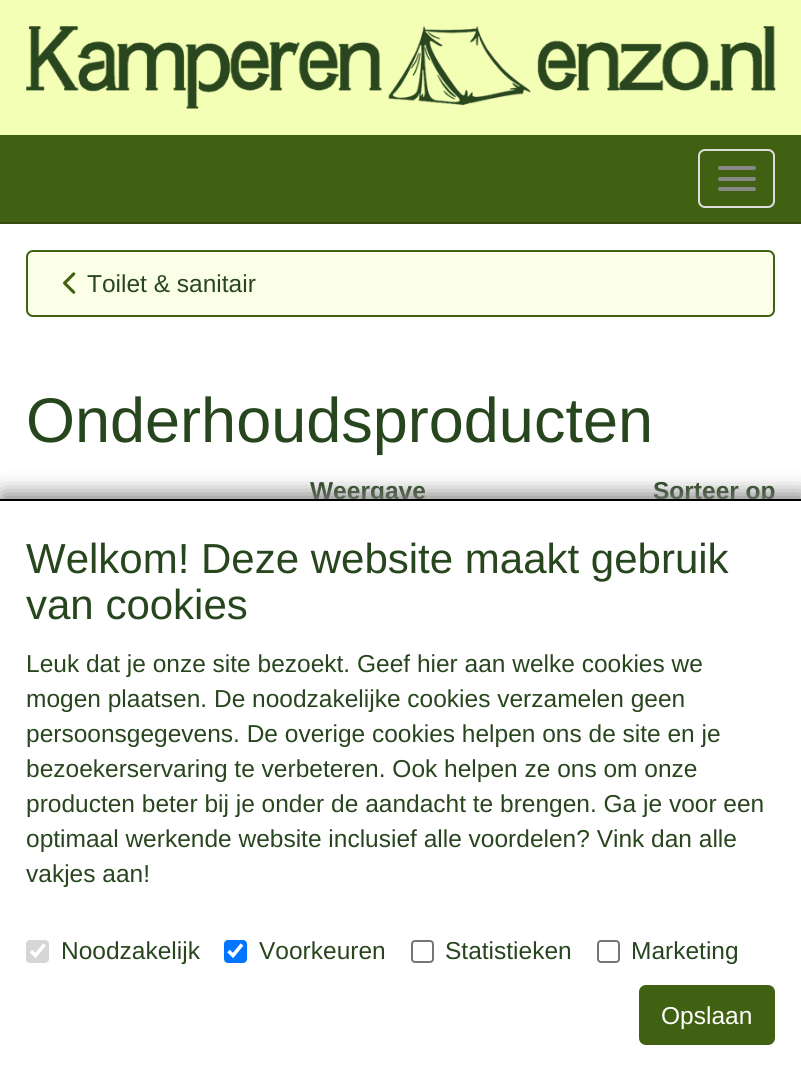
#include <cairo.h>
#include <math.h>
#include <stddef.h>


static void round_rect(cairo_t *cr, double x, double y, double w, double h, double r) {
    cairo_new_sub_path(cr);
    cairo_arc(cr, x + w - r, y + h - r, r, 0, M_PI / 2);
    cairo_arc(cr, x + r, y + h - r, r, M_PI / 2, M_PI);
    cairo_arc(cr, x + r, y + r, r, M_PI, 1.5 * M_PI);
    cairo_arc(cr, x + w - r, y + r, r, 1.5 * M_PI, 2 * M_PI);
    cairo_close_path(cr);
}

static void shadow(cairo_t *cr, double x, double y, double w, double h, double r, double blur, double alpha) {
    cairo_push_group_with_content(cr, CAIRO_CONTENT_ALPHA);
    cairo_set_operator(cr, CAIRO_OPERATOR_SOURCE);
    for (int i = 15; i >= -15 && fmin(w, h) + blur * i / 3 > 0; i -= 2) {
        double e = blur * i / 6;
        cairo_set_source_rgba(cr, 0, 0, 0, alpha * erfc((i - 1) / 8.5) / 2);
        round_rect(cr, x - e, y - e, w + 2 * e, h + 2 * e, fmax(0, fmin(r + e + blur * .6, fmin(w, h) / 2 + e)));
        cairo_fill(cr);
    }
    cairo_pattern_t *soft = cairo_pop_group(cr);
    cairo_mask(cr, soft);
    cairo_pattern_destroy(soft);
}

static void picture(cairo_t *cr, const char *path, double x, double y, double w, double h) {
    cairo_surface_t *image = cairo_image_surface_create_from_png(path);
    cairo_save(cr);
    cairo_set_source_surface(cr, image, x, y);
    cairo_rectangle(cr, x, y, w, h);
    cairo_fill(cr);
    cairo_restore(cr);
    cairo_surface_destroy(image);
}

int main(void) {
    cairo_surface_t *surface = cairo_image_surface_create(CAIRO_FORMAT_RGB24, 801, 1068);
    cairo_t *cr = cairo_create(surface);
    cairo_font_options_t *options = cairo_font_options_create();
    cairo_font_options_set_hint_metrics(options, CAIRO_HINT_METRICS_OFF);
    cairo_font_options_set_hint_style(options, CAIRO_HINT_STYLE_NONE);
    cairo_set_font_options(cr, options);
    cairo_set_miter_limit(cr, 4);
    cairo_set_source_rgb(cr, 1, 1, 1);
    cairo_paint(cr);
    cairo_set_source_rgb(cr, 0.953, 1, 0.706);
    cairo_rectangle(cr, 0, 0, 801, 135);
    cairo_fill(cr);
    picture(cr, "img1.png", 26, 26, 750, 83);
    cairo_set_source_rgb(cr, 0.255, 0.38, 0.071);
    cairo_rectangle(cr, 0, 135, 801, 87);
    cairo_fill(cr);
    cairo_set_source_rgb(cr, 0.2, 0.294, 0.055);
    cairo_rectangle(cr, 0, 222, 801, 2);
    cairo_fill(cr);
    round_rect(cr, 699, 150, 75, 57, 6);
    cairo_set_source_rgb(cr, 0.867, 0.867, 0.867);
    cairo_stroke(cr);
    cairo_set_source_rgb(cr, 0.533, 0.533, 0.533);
    round_rect(cr, 718, 166, 38, 4, 2);
    cairo_fill(cr);
    round_rect(cr, 718, 177, 38, 4, 2);
    cairo_fill(cr);
    round_rect(cr, 718, 187, 38, 4, 2);
    cairo_fill(cr);
    cairo_set_source_rgb(cr, 0.984, 1, 0.906);
    round_rect(cr, 27, 251, 747, 65, 6);
    cairo_fill_preserve(cr);
    cairo_set_source_rgb(cr, 0.255, 0.38, 0.071);
    cairo_stroke(cr);
    picture(cr, "img2.png", 63, 272, 13, 22);
    cairo_select_font_face(cr, "Liberation Sans", CAIRO_FONT_SLANT_NORMAL, CAIRO_FONT_WEIGHT_NORMAL);
    cairo_set_font_size(cr, 24.5);
    cairo_set_source_rgb(cr, 0.157, 0.275, 0.118);
    cairo_move_to(cr, 87, 292);
    cairo_show_text(cr, "Toilet & sanitair");
    cairo_set_font_size(cr, 63);
    cairo_move_to(cr, 26, 442);
    cairo_show_text(cr, "Onderhoudsproducten");
    cairo_select_font_face(cr, "Liberation Sans", CAIRO_FONT_SLANT_NORMAL, CAIRO_FONT_WEIGHT_BOLD);
    cairo_set_font_size(cr, 24.5);
    cairo_move_to(cr, 310, 499);
    cairo_show_text(cr, "Weergave");
    cairo_move_to(cr, 653, 499);
    cairo_show_text(cr, "Sorteer op");
    cairo_set_source_rgb(cr, 0.502, 0.502, 0.502);
    shadow(cr, 2, 494, 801, 570, 0, 10.5, 1);
    cairo_set_source_rgb(cr, 1, 1, 1);
    cairo_rectangle(cr, 0, 501, 801, 567);
    cairo_fill(cr);
    cairo_set_source_rgb(cr, 0, 0, 0);
    cairo_rectangle(cr, 0, 499, 801, 2);
    cairo_fill(cr);
    cairo_select_font_face(cr, "Liberation Sans", CAIRO_FONT_SLANT_NORMAL, CAIRO_FONT_WEIGHT_NORMAL);
    cairo_set_font_size(cr, 42);
    cairo_set_source_rgb(cr, 0.157, 0.275, 0.118);
    cairo_move_to(cr, 26, 573);
    cairo_show_text(cr, "Welkom! Deze website maakt gebruik");
    cairo_move_to(cr, 26, 619);
    cairo_show_text(cr, "van cookies");
    cairo_set_font_size(cr, 24.5);
    cairo_move_to(cr, 26, 672);
    cairo_show_text(cr, "Leuk dat je onze site bezoekt. Geef hier aan welke cookies we");
    cairo_move_to(cr, 26, 707);
    cairo_show_text(cr, "mogen plaatsen. De noodzakelijke cookies verzamelen geen");
    cairo_move_to(cr, 26, 742);
    cairo_show_text(cr, "persoonsgegevens. De overige cookies helpen ons de site en je");
    cairo_move_to(cr, 26, 777);
    cairo_show_text(cr, "bezoekerservaring te verbeteren. Ook helpen ze ons om onze");
    cairo_move_to(cr, 26, 812);
    cairo_show_text(cr, "producten beter bij je onder de aandacht te brengen. Ga je voor een");
    cairo_move_to(cr, 26, 847);
    cairo_show_text(cr, "optimaal werkende website inclusief alle voordelen? Vink dan alle");
    cairo_move_to(cr, 26, 882);
    cairo_show_text(cr, "vakjes aan!");
    cairo_set_source_rgb(cr, 0.839, 0.839, 0.839);
    round_rect(cr, 26, 940, 23, 23, 4);
    cairo_fill(cr);
    cairo_new_path(cr);
    cairo_move_to(cr, 31, 951);
    cairo_line_to(cr, 35.5, 955.5);
    cairo_line_to(cr, 44.5, 944.5);
    cairo_set_source_rgb(cr, 1, 1, 1);
    cairo_set_line_width(cr, 3.6);
    cairo_stroke(cr);
    cairo_set_source_rgb(cr, 0.157, 0.275, 0.118);
    cairo_move_to(cr, 61, 959);
    cairo_show_text(cr, "Noodzakelijk");
    cairo_set_source_rgb(cr, 0, 0.459, 1);
    round_rect(cr, 224, 940, 23, 23, 4);
    cairo_fill(cr);
    cairo_new_path(cr);
    cairo_move_to(cr, 228.5, 951);
    cairo_line_to(cr, 233, 955.5);
    cairo_line_to(cr, 242, 944.5);
    cairo_set_source_rgb(cr, 1, 1, 1);
    cairo_stroke(cr);
    cairo_set_source_rgb(cr, 0.157, 0.275, 0.118);
    cairo_move_to(cr, 259, 959);
    cairo_show_text(cr, "Voorkeuren");
    round_rect(cr, 412, 941, 21, 21, 3);
    cairo_set_source_rgb(cr, 0.463, 0.463, 0.463);
    cairo_set_line_width(cr, 2);
    cairo_stroke(cr);
    cairo_set_source_rgb(cr, 0.157, 0.275, 0.118);
    cairo_move_to(cr, 445, 959);
    cairo_show_text(cr, "Statistieken");
    round_rect(cr, 598, 941, 21, 21, 3);
    cairo_set_source_rgb(cr, 0.463, 0.463, 0.463);
    cairo_stroke(cr);
    cairo_set_source_rgb(cr, 0.157, 0.275, 0.118);
    cairo_move_to(cr, 631, 959);
    cairo_show_text(cr, "Marketing");
    cairo_set_source_rgb(cr, 0.255, 0.38, 0.071);
    round_rect(cr, 640, 986, 134, 58, 6);
    cairo_fill_preserve(cr);
    cairo_stroke(cr);
    cairo_set_source_rgb(cr, 0.996, 0.996, 0.996);
    cairo_move_to(cr, 661, 1024);
    cairo_show_text(cr, "Opslaan");
    cairo_surface_write_to_png(surface, "page.png");
    cairo_font_options_destroy(options);
    cairo_destroy(cr);
    cairo_surface_destroy(surface);
    return 0;
}
